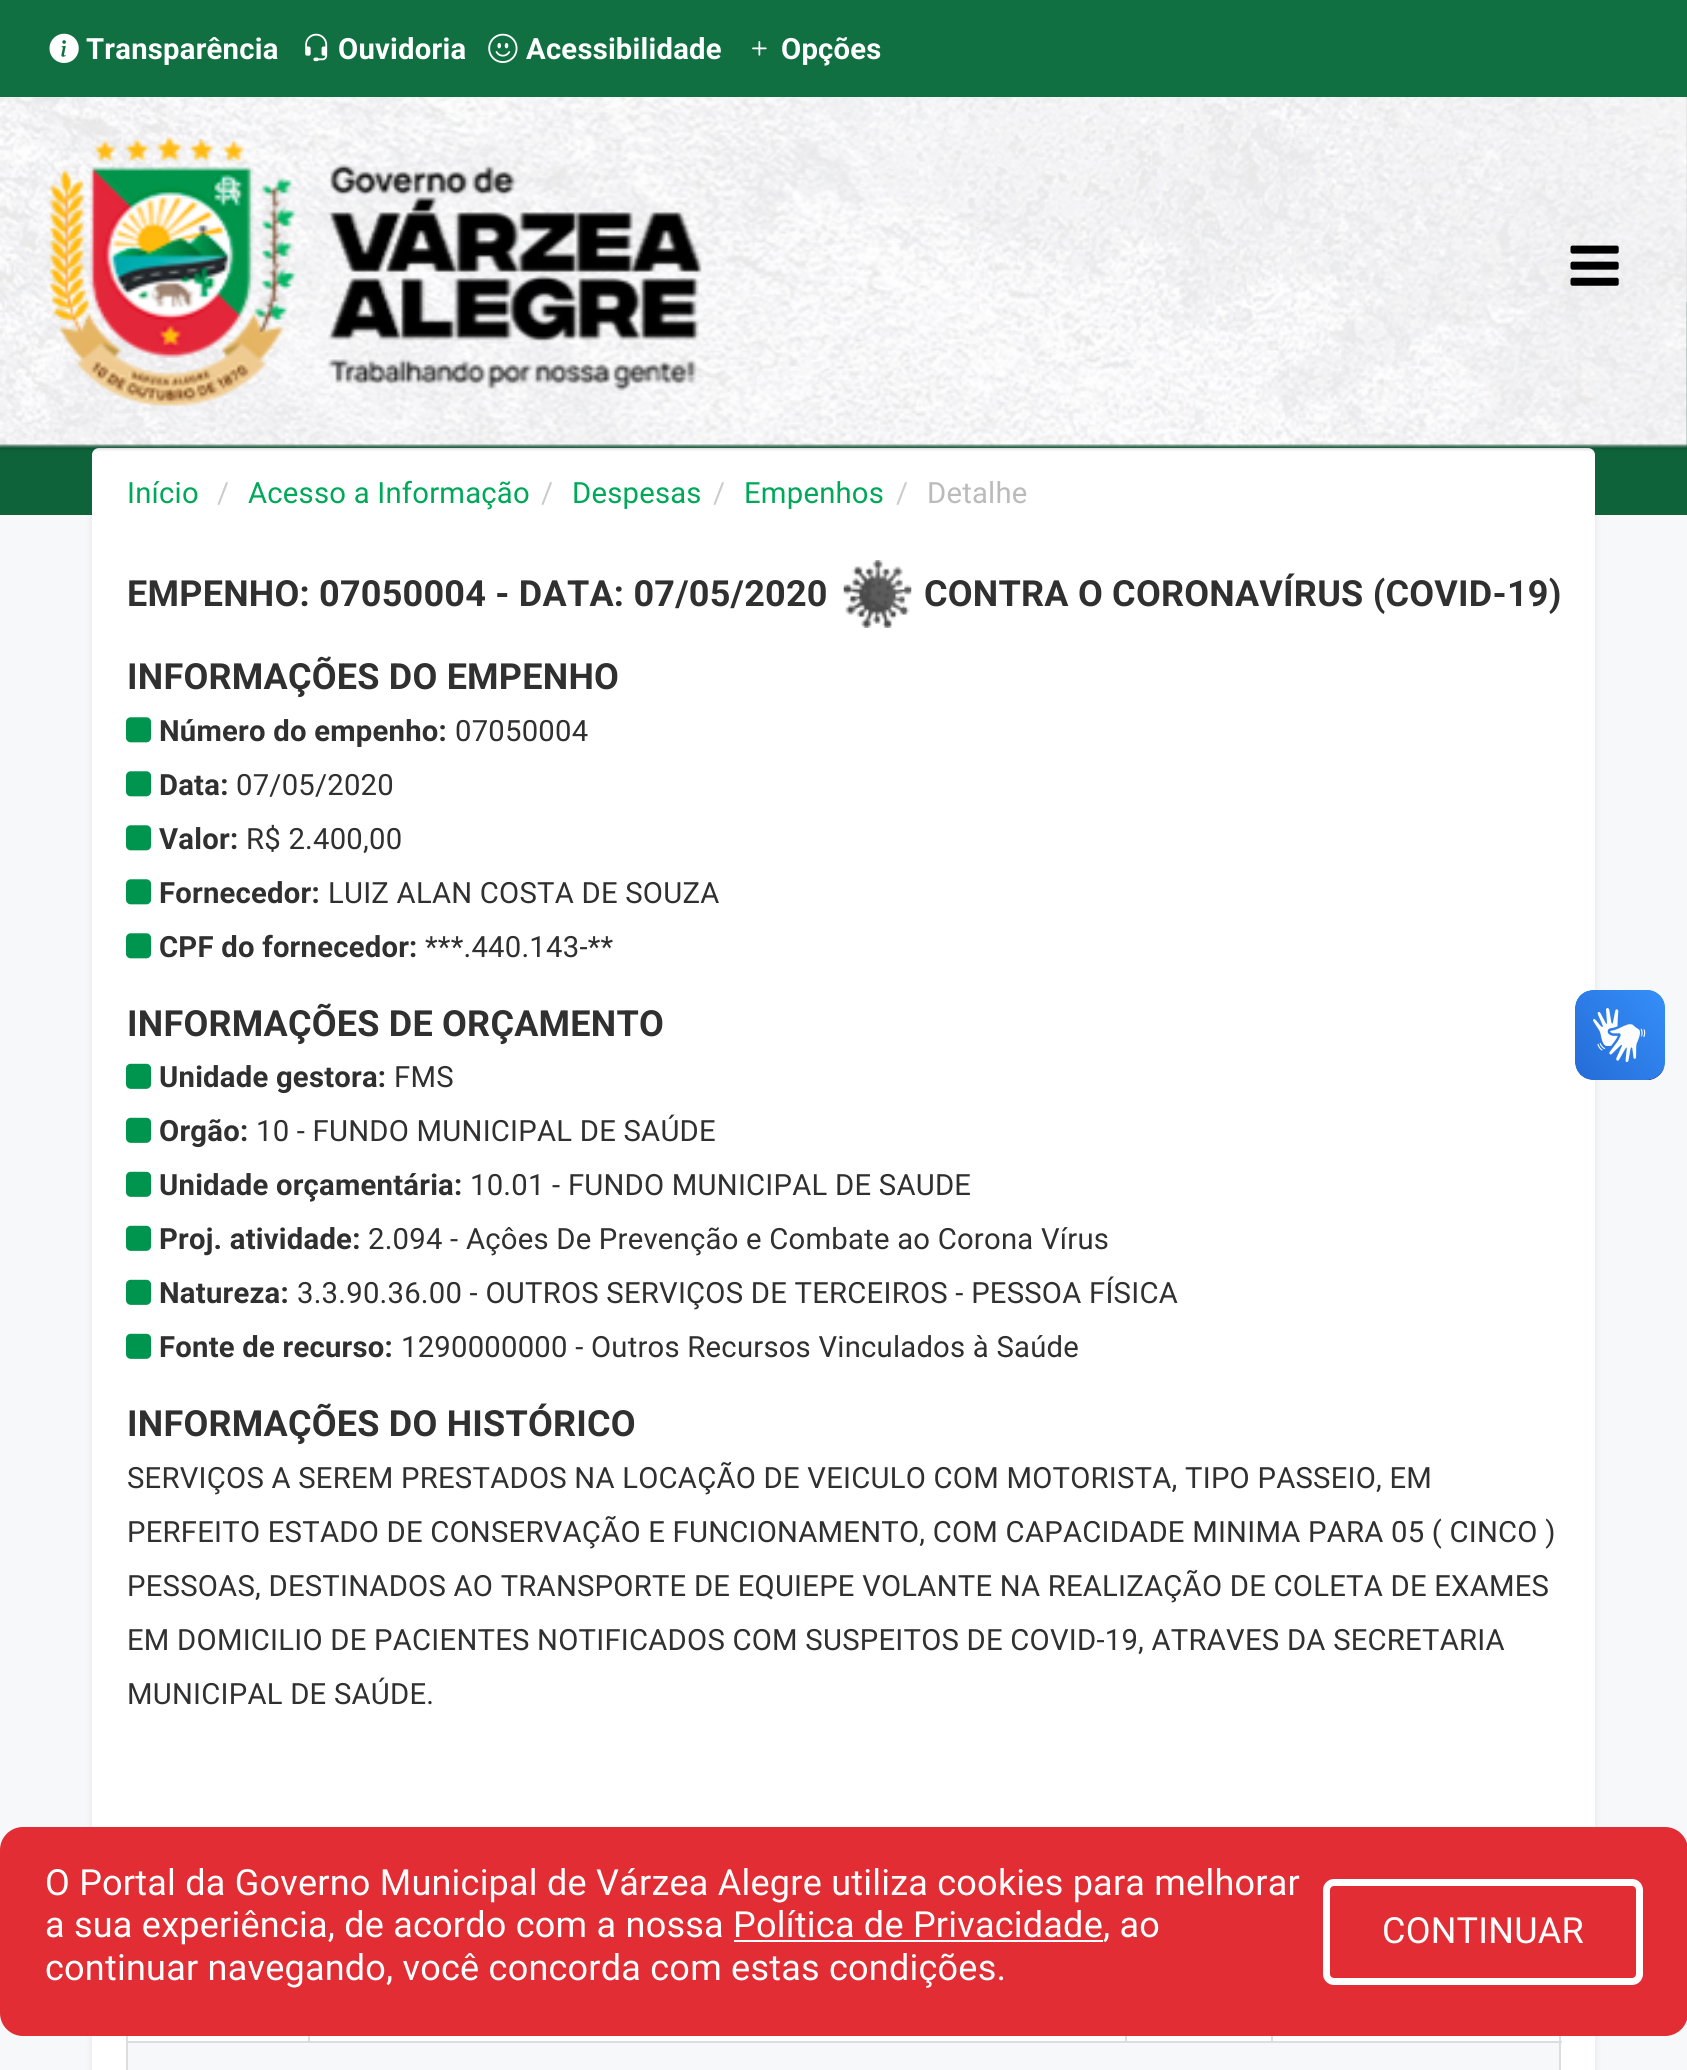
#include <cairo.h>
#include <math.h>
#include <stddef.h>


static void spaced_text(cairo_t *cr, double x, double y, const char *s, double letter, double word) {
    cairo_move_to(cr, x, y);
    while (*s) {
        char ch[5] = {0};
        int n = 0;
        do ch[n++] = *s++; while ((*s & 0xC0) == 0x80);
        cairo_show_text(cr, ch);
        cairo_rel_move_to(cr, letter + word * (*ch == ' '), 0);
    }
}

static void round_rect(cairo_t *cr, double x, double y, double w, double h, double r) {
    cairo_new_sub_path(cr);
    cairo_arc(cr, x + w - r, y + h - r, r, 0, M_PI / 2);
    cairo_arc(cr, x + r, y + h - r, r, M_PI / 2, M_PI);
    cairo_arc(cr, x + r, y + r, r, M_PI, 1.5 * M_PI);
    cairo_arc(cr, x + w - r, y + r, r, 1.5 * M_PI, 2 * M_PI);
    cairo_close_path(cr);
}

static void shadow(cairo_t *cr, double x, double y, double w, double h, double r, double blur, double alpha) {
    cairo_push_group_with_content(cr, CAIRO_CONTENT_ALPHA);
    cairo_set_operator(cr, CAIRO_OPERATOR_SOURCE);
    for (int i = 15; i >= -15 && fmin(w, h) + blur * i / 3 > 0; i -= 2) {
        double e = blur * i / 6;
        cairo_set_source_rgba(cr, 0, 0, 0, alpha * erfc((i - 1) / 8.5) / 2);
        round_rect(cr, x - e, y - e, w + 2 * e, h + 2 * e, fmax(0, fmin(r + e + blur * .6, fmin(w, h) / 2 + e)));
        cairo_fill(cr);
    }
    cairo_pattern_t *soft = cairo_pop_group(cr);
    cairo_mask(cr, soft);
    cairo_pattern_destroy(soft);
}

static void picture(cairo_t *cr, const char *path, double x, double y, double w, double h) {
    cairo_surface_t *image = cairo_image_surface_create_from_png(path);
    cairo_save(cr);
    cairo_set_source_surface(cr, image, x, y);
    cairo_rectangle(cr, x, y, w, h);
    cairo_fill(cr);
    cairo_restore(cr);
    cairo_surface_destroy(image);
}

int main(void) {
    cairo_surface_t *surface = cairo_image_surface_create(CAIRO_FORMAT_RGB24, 1687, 2070);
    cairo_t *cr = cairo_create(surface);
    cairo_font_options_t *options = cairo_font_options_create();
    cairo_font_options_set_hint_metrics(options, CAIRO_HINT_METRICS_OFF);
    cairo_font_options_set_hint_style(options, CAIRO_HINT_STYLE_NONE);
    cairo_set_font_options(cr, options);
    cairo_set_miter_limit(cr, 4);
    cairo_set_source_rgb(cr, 0.965, 0.969, 0.973);
    cairo_paint(cr);
    cairo_set_source_rgb(cr, 0.012, 0, 0.278);
    shadow(cr, 92, 450, 1503, 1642, 11, 3.5, 0.09);
    cairo_set_source_rgb(cr, 0.055, 0.388, 0.227);
    cairo_rectangle(cr, 0, 302, 1687, 213);
    cairo_fill(cr);
    cairo_set_source_rgb(cr, 1, 1, 1);
    cairo_rectangle(cr, 92, 531, 1503, 1539);
    cairo_fill(cr);
    round_rect(cr, 92, 448, 1503, 90, 7);
    cairo_fill(cr);
    cairo_set_source_rgb(cr, 0, 0, 0);
    shadow(cr, 0, 2, 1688, 446, 0, 2, 0.3);
    picture(cr, "img1.png", 0, 97, 1687, 351);
    cairo_set_source_rgb(cr, 0.063, 0.439, 0.255);
    cairo_rectangle(cr, 0, 0, 1687, 97);
    cairo_fill(cr);
    picture(cr, "img2.png", 49, 33, 30, 30);
    cairo_select_font_face(cr, "Roboto", CAIRO_FONT_SLANT_NORMAL, CAIRO_FONT_WEIGHT_BOLD);
    cairo_set_font_size(cr, 29.25);
    cairo_set_source_rgb(cr, 1, 1, 1);
    spaced_text(cr, 86, 59, "Transparência", 0.23, 0);
    picture(cr, "img3.png", 305, 33, 23, 29);
    spaced_text(cr, 338, 59, "Ouvidoria", 0.23, 0);
    picture(cr, "img4.png", 488, 33, 30, 30);
    spaced_text(cr, 526, 59, "Acessibilidade", 0.23, 0);
    picture(cr, "img5.png", 752, 41, 15, 15);
    spaced_text(cr, 781, 59, "Opções", 0.23, 0);
    picture(cr, "img6.png", 49, 136, 653, 271);
    picture(cr, "img7.png", 1570, 245, 49, 41);
    cairo_select_font_face(cr, "Roboto", CAIRO_FONT_SLANT_NORMAL, CAIRO_FONT_WEIGHT_NORMAL);
    cairo_set_source_rgb(cr, 0, 0.659, 0.349);
    spaced_text(cr, 127, 503, "Início", 0.23, 0);
    cairo_set_source_rgb(cr, 0.8, 0.8, 0.8);
    spaced_text(cr, 217, 503, "/", 0.23, 0);
    cairo_set_source_rgb(cr, 0, 0.659, 0.349);
    spaced_text(cr, 248, 503, "Acesso a Informação", 0.23, 0);
    cairo_set_source_rgb(cr, 0.8, 0.8, 0.8);
    spaced_text(cr, 541, 503, "/", 0.23, 0);
    cairo_set_source_rgb(cr, 0, 0.659, 0.349);
    spaced_text(cr, 572, 503, "Despesas", 0.23, 0);
    cairo_set_source_rgb(cr, 0.8, 0.8, 0.8);
    spaced_text(cr, 713, 503, "/", 0.23, 0);
    cairo_set_source_rgb(cr, 0, 0.659, 0.349);
    spaced_text(cr, 744, 503, "Empenhos", 0.23, 0);
    cairo_set_source_rgb(cr, 0.8, 0.8, 0.8);
    spaced_text(cr, 896, 503, "/", 0.23, 0);
    cairo_set_source_rgb(cr, 0.733, 0.733, 0.733);
    spaced_text(cr, 927, 503, "Detalhe", 0.23, 0);
    cairo_select_font_face(cr, "Roboto", CAIRO_FONT_SLANT_NORMAL, CAIRO_FONT_WEIGHT_BOLD);
    cairo_set_font_size(cr, 36);
    cairo_set_source_rgb(cr, 0.188, 0.188, 0.188);
    spaced_text(cr, 127, 606, "EMPENHO: 07050004 - DATA: 07/05/2020", 0.23, 0);
    picture(cr, "img8.png", 843, 560, 69, 68);
    spaced_text(cr, 924, 606, "CONTRA O CORONAVÍRUS (COVID-19)", 0.23, 0);
    spaced_text(cr, 127, 689, "INFORMAÇÕES DO EMPENHO", 0.23, 0);
    picture(cr, "img9.png", 126, 717, 26, 26);
    cairo_set_font_size(cr, 29.25);
    spaced_text(cr, 159, 741, "Número do empenho:", 0.23, 0);
    cairo_select_font_face(cr, "Roboto", CAIRO_FONT_SLANT_NORMAL, CAIRO_FONT_WEIGHT_NORMAL);
    spaced_text(cr, 455, 741, "07050004", 0.23, 0);
    picture(cr, "img9.png", 126, 771, 26, 26);
    cairo_select_font_face(cr, "Roboto", CAIRO_FONT_SLANT_NORMAL, CAIRO_FONT_WEIGHT_BOLD);
    spaced_text(cr, 159, 795, "Data:", 0.23, 0);
    cairo_select_font_face(cr, "Roboto", CAIRO_FONT_SLANT_NORMAL, CAIRO_FONT_WEIGHT_NORMAL);
    spaced_text(cr, 236, 795, "07/05/2020", 0.23, 0);
    picture(cr, "img9.png", 126, 825, 26, 26);
    cairo_select_font_face(cr, "Roboto", CAIRO_FONT_SLANT_NORMAL, CAIRO_FONT_WEIGHT_BOLD);
    spaced_text(cr, 159, 849, "Valor:", 0.23, 0);
    cairo_select_font_face(cr, "Roboto", CAIRO_FONT_SLANT_NORMAL, CAIRO_FONT_WEIGHT_NORMAL);
    spaced_text(cr, 246, 849, "R$ 2.400,00", 0.23, 0);
    picture(cr, "img9.png", 126, 879, 26, 26);
    cairo_select_font_face(cr, "Roboto", CAIRO_FONT_SLANT_NORMAL, CAIRO_FONT_WEIGHT_BOLD);
    spaced_text(cr, 159, 903, "Fornecedor:", 0.23, 0);
    cairo_select_font_face(cr, "Roboto", CAIRO_FONT_SLANT_NORMAL, CAIRO_FONT_WEIGHT_NORMAL);
    spaced_text(cr, 328, 903, "LUIZ ALAN COSTA DE SOUZA", 0.23, 0);
    picture(cr, "img9.png", 126, 933, 26, 26);
    cairo_select_font_face(cr, "Roboto", CAIRO_FONT_SLANT_NORMAL, CAIRO_FONT_WEIGHT_BOLD);
    spaced_text(cr, 159, 957, "CPF do fornecedor:", 0.23, 0);
    cairo_select_font_face(cr, "Roboto", CAIRO_FONT_SLANT_NORMAL, CAIRO_FONT_WEIGHT_NORMAL);
    spaced_text(cr, 425, 957, "***.440.143-**", 0.23, 0);
    cairo_select_font_face(cr, "Roboto", CAIRO_FONT_SLANT_NORMAL, CAIRO_FONT_WEIGHT_BOLD);
    cairo_set_font_size(cr, 36);
    spaced_text(cr, 127, 1036, "INFORMAÇÕES DE ORÇAMENTO", 0.23, 0);
    picture(cr, "img10.png", 126, 1063, 26, 26);
    cairo_set_font_size(cr, 29.25);
    spaced_text(cr, 159, 1087, "Unidade gestora:", 0.23, 0);
    cairo_select_font_face(cr, "Roboto", CAIRO_FONT_SLANT_NORMAL, CAIRO_FONT_WEIGHT_NORMAL);
    spaced_text(cr, 394, 1087, "FMS", 0.23, 0);
    picture(cr, "img10.png", 126, 1117, 26, 26);
    cairo_select_font_face(cr, "Roboto", CAIRO_FONT_SLANT_NORMAL, CAIRO_FONT_WEIGHT_BOLD);
    spaced_text(cr, 159, 1141, "Orgão:", 0.23, 0);
    cairo_select_font_face(cr, "Roboto", CAIRO_FONT_SLANT_NORMAL, CAIRO_FONT_WEIGHT_NORMAL);
    spaced_text(cr, 256, 1141, "10 - FUNDO MUNICIPAL DE SAÚDE", 0.23, 0);
    picture(cr, "img10.png", 126, 1171, 26, 26);
    cairo_select_font_face(cr, "Roboto", CAIRO_FONT_SLANT_NORMAL, CAIRO_FONT_WEIGHT_BOLD);
    spaced_text(cr, 159, 1195, "Unidade orçamentária:", 0.23, 0);
    cairo_select_font_face(cr, "Roboto", CAIRO_FONT_SLANT_NORMAL, CAIRO_FONT_WEIGHT_NORMAL);
    spaced_text(cr, 470, 1195, "10.01 - FUNDO MUNICIPAL DE SAUDE", 0.23, 0);
    picture(cr, "img10.png", 126, 1225, 26, 26);
    cairo_select_font_face(cr, "Roboto", CAIRO_FONT_SLANT_NORMAL, CAIRO_FONT_WEIGHT_BOLD);
    spaced_text(cr, 159, 1249, "Proj. atividade:", 0.23, 0);
    cairo_select_font_face(cr, "Roboto", CAIRO_FONT_SLANT_NORMAL, CAIRO_FONT_WEIGHT_NORMAL);
    spaced_text(cr, 368, 1249, "2.094 - Açôes De Prevenção e Combate ao Corona Vírus", 0.23, 0);
    picture(cr, "img10.png", 126, 1279, 26, 26);
    cairo_select_font_face(cr, "Roboto", CAIRO_FONT_SLANT_NORMAL, CAIRO_FONT_WEIGHT_BOLD);
    spaced_text(cr, 159, 1303, "Natureza:", 0.23, 0);
    cairo_select_font_face(cr, "Roboto", CAIRO_FONT_SLANT_NORMAL, CAIRO_FONT_WEIGHT_NORMAL);
    spaced_text(cr, 297, 1303, "3.3.90.36.00 - OUTROS SERVIÇOS DE TERCEIROS - PESSOA FÍSICA", 0.23, 0);
    picture(cr, "img10.png", 126, 1333, 26, 26);
    cairo_select_font_face(cr, "Roboto", CAIRO_FONT_SLANT_NORMAL, CAIRO_FONT_WEIGHT_BOLD);
    spaced_text(cr, 159, 1357, "Fonte de recurso:", 0.23, 0);
    cairo_select_font_face(cr, "Roboto", CAIRO_FONT_SLANT_NORMAL, CAIRO_FONT_WEIGHT_NORMAL);
    spaced_text(cr, 401, 1357, "1290000000 - Outros Recursos Vinculados à Saúde", 0.23, 0);
    cairo_select_font_face(cr, "Roboto", CAIRO_FONT_SLANT_NORMAL, CAIRO_FONT_WEIGHT_BOLD);
    cairo_set_font_size(cr, 36);
    spaced_text(cr, 127, 1436, "INFORMAÇÕES DO HISTÓRICO", 0.23, 0);
    cairo_select_font_face(cr, "Roboto", CAIRO_FONT_SLANT_NORMAL, CAIRO_FONT_WEIGHT_NORMAL);
    cairo_set_font_size(cr, 29.25);
    spaced_text(cr, 127, 1488, "SERVIÇOS A SEREM PRESTADOS NA LOCAÇÃO DE VEICULO COM MOTORISTA, TIPO PASSEIO, EM", 0.23, 0);
    spaced_text(cr, 127, 1542, "PERFEITO ESTADO DE CONSERVAÇÃO E FUNCIONAMENTO, COM CAPACIDADE MINIMA PARA 05 ( CINCO )", 0.23, 0);
    spaced_text(cr, 127, 1596, "PESSOAS, DESTINADOS AO TRANSPORTE DE EQUIEPE VOLANTE NA REALIZAÇÃO DE COLETA DE EXAMES", 0.23, 0);
    spaced_text(cr, 127, 1650, "EM DOMICILIO DE PACIENTES NOTIFICADOS COM SUSPEITOS DE COVID-19, ATRAVES DA SECRETARIA", 0.23, 0);
    spaced_text(cr, 127, 1704, "MUNICIPAL DE SAÚDE.", 0.23, 0);
    cairo_set_source_rgb(cr, 0.867, 0.867, 0.867);
    cairo_rectangle(cr, 1559, 2036, 2, 34);
    cairo_fill(cr);
    cairo_rectangle(cr, 126, 2036, 2, 34);
    cairo_fill(cr);
    cairo_rectangle(cr, 126, 2041, 1436, 2);
    cairo_fill(cr);
    cairo_rectangle(cr, 308, 2036, 2, 7);
    cairo_fill(cr);
    cairo_rectangle(cr, 1125, 2036, 2, 7);
    cairo_fill(cr);
    cairo_rectangle(cr, 1271, 2036, 2, 7);
    cairo_fill(cr);
    cairo_set_source_rgb(cr, 0.965, 0.969, 0.973);
    cairo_rectangle(cr, 128, 2043, 1431, 27);
    cairo_fill(cr);
    picture(cr, "img11.png", 1575, 990, 90, 90);
    picture(cr, "img12.png", 1575, 990, 90, 90);
    cairo_set_source_rgb(cr, 0.882, 0.176, 0.2);
    round_rect(cr, 0, 1827, 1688, 209, 23);
    cairo_fill(cr);
    cairo_set_font_size(cr, 36);
    cairo_set_source_rgb(cr, 1, 1, 1);
    spaced_text(cr, 45, 1895, "O Portal da Governo Municipal de Várzea Alegre utiliza cookies para melhorar", 0.23, 0);
    spaced_text(cr, 45, 1937, "a sua experiência, de acordo com a nossa Política de Privacidade, ao", 0.23, 0);
    cairo_rectangle(cr, 734, 1940, 369, 2);
    cairo_fill(cr);
    spaced_text(cr, 45, 1980, "continuar navegando, você concorda com estas condições.", 0.23, 0);
    round_rect(cr, 1326.5, 1882.5, 313, 99, 7.5);
    cairo_set_line_width(cr, 7);
    cairo_stroke(cr);
    spaced_text(cr, 1382, 1943, "CONTINUAR", 0.23, 0);
    cairo_surface_write_to_png(surface, "page.png");
    cairo_font_options_destroy(options);
    cairo_destroy(cr);
    cairo_surface_destroy(surface);
    return 0;
}
